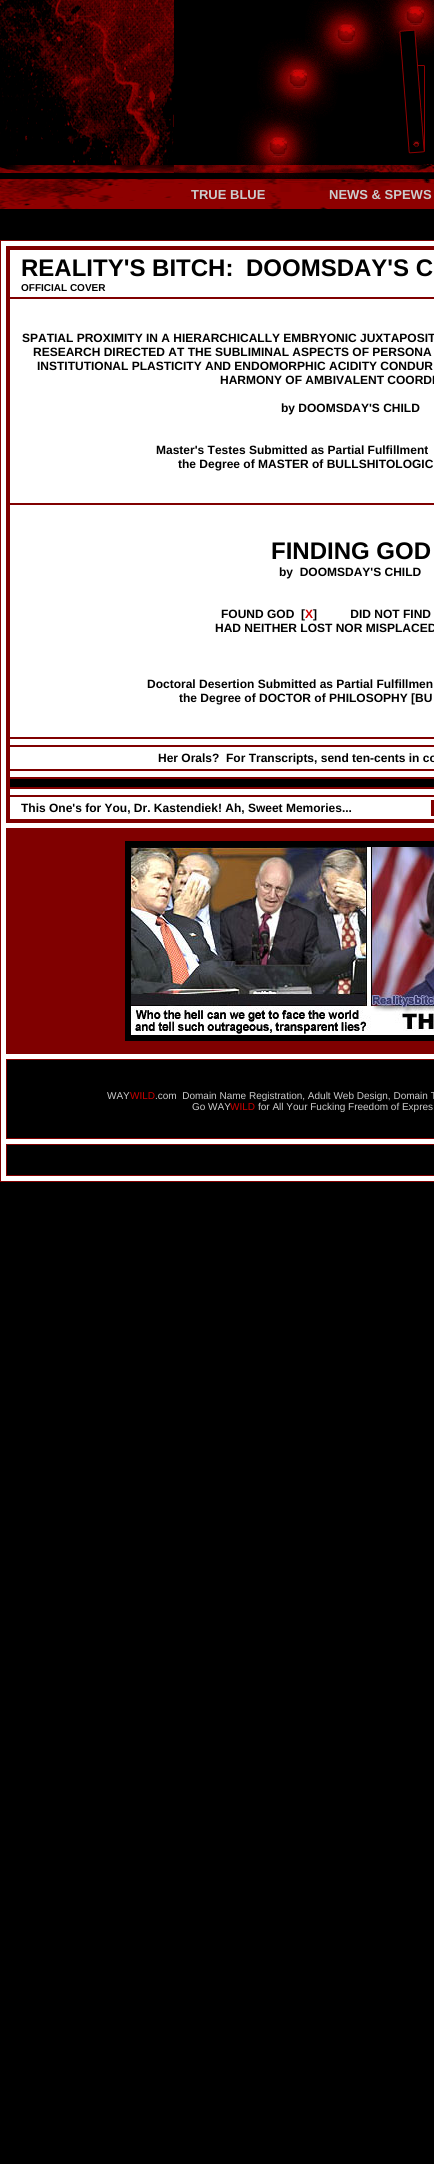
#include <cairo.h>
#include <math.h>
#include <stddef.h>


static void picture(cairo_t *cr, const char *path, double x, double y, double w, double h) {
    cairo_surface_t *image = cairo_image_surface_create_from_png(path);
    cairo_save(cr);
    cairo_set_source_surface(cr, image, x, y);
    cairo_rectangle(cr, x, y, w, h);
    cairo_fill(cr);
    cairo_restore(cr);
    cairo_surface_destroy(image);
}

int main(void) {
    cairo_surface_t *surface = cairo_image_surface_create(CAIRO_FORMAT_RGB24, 434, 2164);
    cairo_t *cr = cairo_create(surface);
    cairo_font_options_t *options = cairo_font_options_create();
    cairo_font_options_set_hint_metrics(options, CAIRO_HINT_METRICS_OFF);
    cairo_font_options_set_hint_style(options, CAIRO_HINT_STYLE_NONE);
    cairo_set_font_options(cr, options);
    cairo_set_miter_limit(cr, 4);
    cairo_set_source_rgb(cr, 0, 0, 0);
    cairo_paint(cr);
    picture(cr, "img1.png", 0, 0, 174, 173);
    picture(cr, "img2.png", 174, 0, 260, 179);
    picture(cr, "img3.png", 0, 179, 434, 30);
    cairo_select_font_face(cr, "Liberation Sans", CAIRO_FONT_SLANT_NORMAL, CAIRO_FONT_WEIGHT_BOLD);
    cairo_set_font_size(cr, 13);
    cairo_set_source_rgb(cr, 0.8, 0.8, 0.8);
    cairo_move_to(cr, 191, 199);
    cairo_show_text(cr, "TRUE BLUE");
    cairo_move_to(cr, 329, 199);
    cairo_show_text(cr, "NEWS & SPEWS");
    cairo_set_source_rgb(cr, 1, 1, 1);
    cairo_rectangle(cr, 0.5, 240.5, 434, 941);
    cairo_fill_preserve(cr);
    cairo_set_source_rgb(cr, 0.502, 0, 0);
    cairo_set_line_width(cr, 1);
    cairo_stroke(cr);
    cairo_rectangle(cr, 6, 246, 428, 577);
    cairo_fill(cr);
    cairo_set_source_rgb(cr, 1, 1, 1);
    cairo_rectangle(cr, 10, 250, 424, 47);
    cairo_fill(cr);
    cairo_set_font_size(cr, 24);
    cairo_set_source_rgb(cr, 0, 0, 0);
    cairo_move_to(cr, 21, 276);
    cairo_show_text(cr, "REALITY'S BITCH:");
    cairo_move_to(cr, 246, 276);
    cairo_show_text(cr, "DOOMSDAY'S C");
    cairo_set_font_size(cr, 10);
    cairo_move_to(cr, 21, 291);
    cairo_show_text(cr, "OFFICIAL COVER");
    cairo_set_source_rgb(cr, 1, 1, 1);
    cairo_rectangle(cr, 10, 299, 424, 204);
    cairo_fill(cr);
    cairo_set_font_size(cr, 12);
    cairo_set_source_rgb(cr, 0, 0, 0);
    cairo_move_to(cr, 22, 342);
    cairo_show_text(cr, "SPATIAL PROXIMITY IN A HIERARCHICALLY EMBRYONIC JUXTAPOSIT");
    cairo_move_to(cr, 33, 356);
    cairo_show_text(cr, "RESEARCH DIRECTED AT THE SUBLIMINAL ASPECTS OF PERSONA");
    cairo_move_to(cr, 37, 370);
    cairo_show_text(cr, "INSTITUTIONAL PLASTICITY AND ENDOMORPHIC ACIDITY CONDUR");
    cairo_move_to(cr, 220, 384);
    cairo_show_text(cr, "HARMONY OF AMBIVALENT COORDI");
    cairo_move_to(cr, 281, 412);
    cairo_show_text(cr, "by DOOMSDAY'S CHILD");
    cairo_move_to(cr, 156, 454);
    cairo_show_text(cr, "Master's Testes Submitted as Partial Fulfillment");
    cairo_move_to(cr, 178, 468);
    cairo_show_text(cr, "the Degree of MASTER of BULLSHITOLOGIC");
    cairo_set_source_rgb(cr, 1, 1, 1);
    cairo_rectangle(cr, 10, 505, 424, 232);
    cairo_fill(cr);
    cairo_set_font_size(cr, 24);
    cairo_set_source_rgb(cr, 0, 0, 0);
    cairo_move_to(cr, 271, 559);
    cairo_show_text(cr, "FINDING GOD");
    cairo_set_font_size(cr, 12);
    cairo_move_to(cr, 279, 576);
    cairo_show_text(cr, "by  DOOMSDAY'S CHILD");
    cairo_move_to(cr, 221, 618);
    cairo_show_text(cr, "FOUND GOD  [");
    cairo_set_source_rgb(cr, 0.8, 0, 0);
    cairo_move_to(cr, 305, 618);
    cairo_show_text(cr, "X");
    cairo_set_source_rgb(cr, 0, 0, 0);
    cairo_move_to(cr, 313, 618);
    cairo_show_text(cr, "]          DID NOT FIND");
    cairo_move_to(cr, 215, 632);
    cairo_show_text(cr, "HAD NEITHER LOST NOR MISPLACED");
    cairo_move_to(cr, 147, 688);
    cairo_show_text(cr, "Doctoral Desertion Submitted as Partial Fulfillmen");
    cairo_move_to(cr, 179, 702);
    cairo_show_text(cr, "the Degree of DOCTOR of PHILOSOPHY [BU");
    cairo_set_source_rgb(cr, 1, 1, 1);
    cairo_rectangle(cr, 10, 739, 424, 6);
    cairo_fill(cr);
    cairo_rectangle(cr, 10, 747, 424, 22);
    cairo_fill(cr);
    cairo_set_source_rgb(cr, 0, 0, 0);
    cairo_move_to(cr, 158, 762);
    cairo_show_text(cr, "Her Orals?  For Transcripts, send ten-cents in co");
    cairo_set_source_rgb(cr, 1, 1, 1);
    cairo_rectangle(cr, 10, 771, 424, 6);
    cairo_fill(cr);
    cairo_set_source_rgb(cr, 0, 0, 0);
    cairo_rectangle(cr, 10, 779, 424, 8);
    cairo_fill(cr);
    cairo_set_source_rgb(cr, 1, 1, 1);
    cairo_rectangle(cr, 10, 789, 424, 6);
    cairo_fill(cr);
    cairo_rectangle(cr, 10, 797, 424, 22);
    cairo_fill(cr);
    cairo_set_source_rgb(cr, 0, 0, 0);
    cairo_move_to(cr, 21, 812);
    cairo_show_text(cr, "This One's for You, Dr. Kastendiek! Ah, Sweet Memories...");
    cairo_set_source_rgb(cr, 0.502, 0, 0);
    cairo_rectangle(cr, 431, 800, 3, 16);
    cairo_fill(cr);
    cairo_rectangle(cr, 6, 828, 428, 226);
    cairo_fill(cr);
    cairo_set_source_rgb(cr, 0, 0, 0);
    cairo_rectangle(cr, 125, 841, 309, 200);
    cairo_fill(cr);
    picture(cr, "img4.png", 131, 847, 303, 188);
    cairo_rectangle(cr, 6.5, 1059.5, 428, 79);
    cairo_fill_preserve(cr);
    cairo_set_source_rgb(cr, 0.502, 0, 0);
    cairo_stroke(cr);
    cairo_select_font_face(cr, "Liberation Sans", CAIRO_FONT_SLANT_NORMAL, CAIRO_FONT_WEIGHT_NORMAL);
    cairo_set_font_size(cr, 10);
    cairo_set_source_rgb(cr, 0.8, 0.8, 0.8);
    cairo_move_to(cr, 107, 1099);
    cairo_show_text(cr, "WAY");
    cairo_set_source_rgb(cr, 0.8, 0, 0);
    cairo_move_to(cr, 130, 1099);
    cairo_show_text(cr, "WILD");
    cairo_set_source_rgb(cr, 0.8, 0.8, 0.8);
    cairo_move_to(cr, 155, 1099);
    cairo_show_text(cr, ".com  Domain Name Registration, Adult Web Design, Domain T");
    cairo_move_to(cr, 192, 1110);
    cairo_show_text(cr, "Go WAY");
    cairo_set_source_rgb(cr, 0.8, 0, 0);
    cairo_move_to(cr, 230, 1110);
    cairo_show_text(cr, "WILD");
    cairo_set_source_rgb(cr, 0.8, 0.8, 0.8);
    cairo_move_to(cr, 258, 1110);
    cairo_show_text(cr, "for All Your Fucking Freedom of Expres");
    cairo_set_source_rgb(cr, 0, 0, 0);
    cairo_rectangle(cr, 6.5, 1144.5, 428, 31);
    cairo_fill_preserve(cr);
    cairo_set_source_rgb(cr, 0.502, 0, 0);
    cairo_stroke(cr);
    cairo_surface_write_to_png(surface, "page.png");
    cairo_font_options_destroy(options);
    cairo_destroy(cr);
    cairo_surface_destroy(surface);
    return 0;
}
